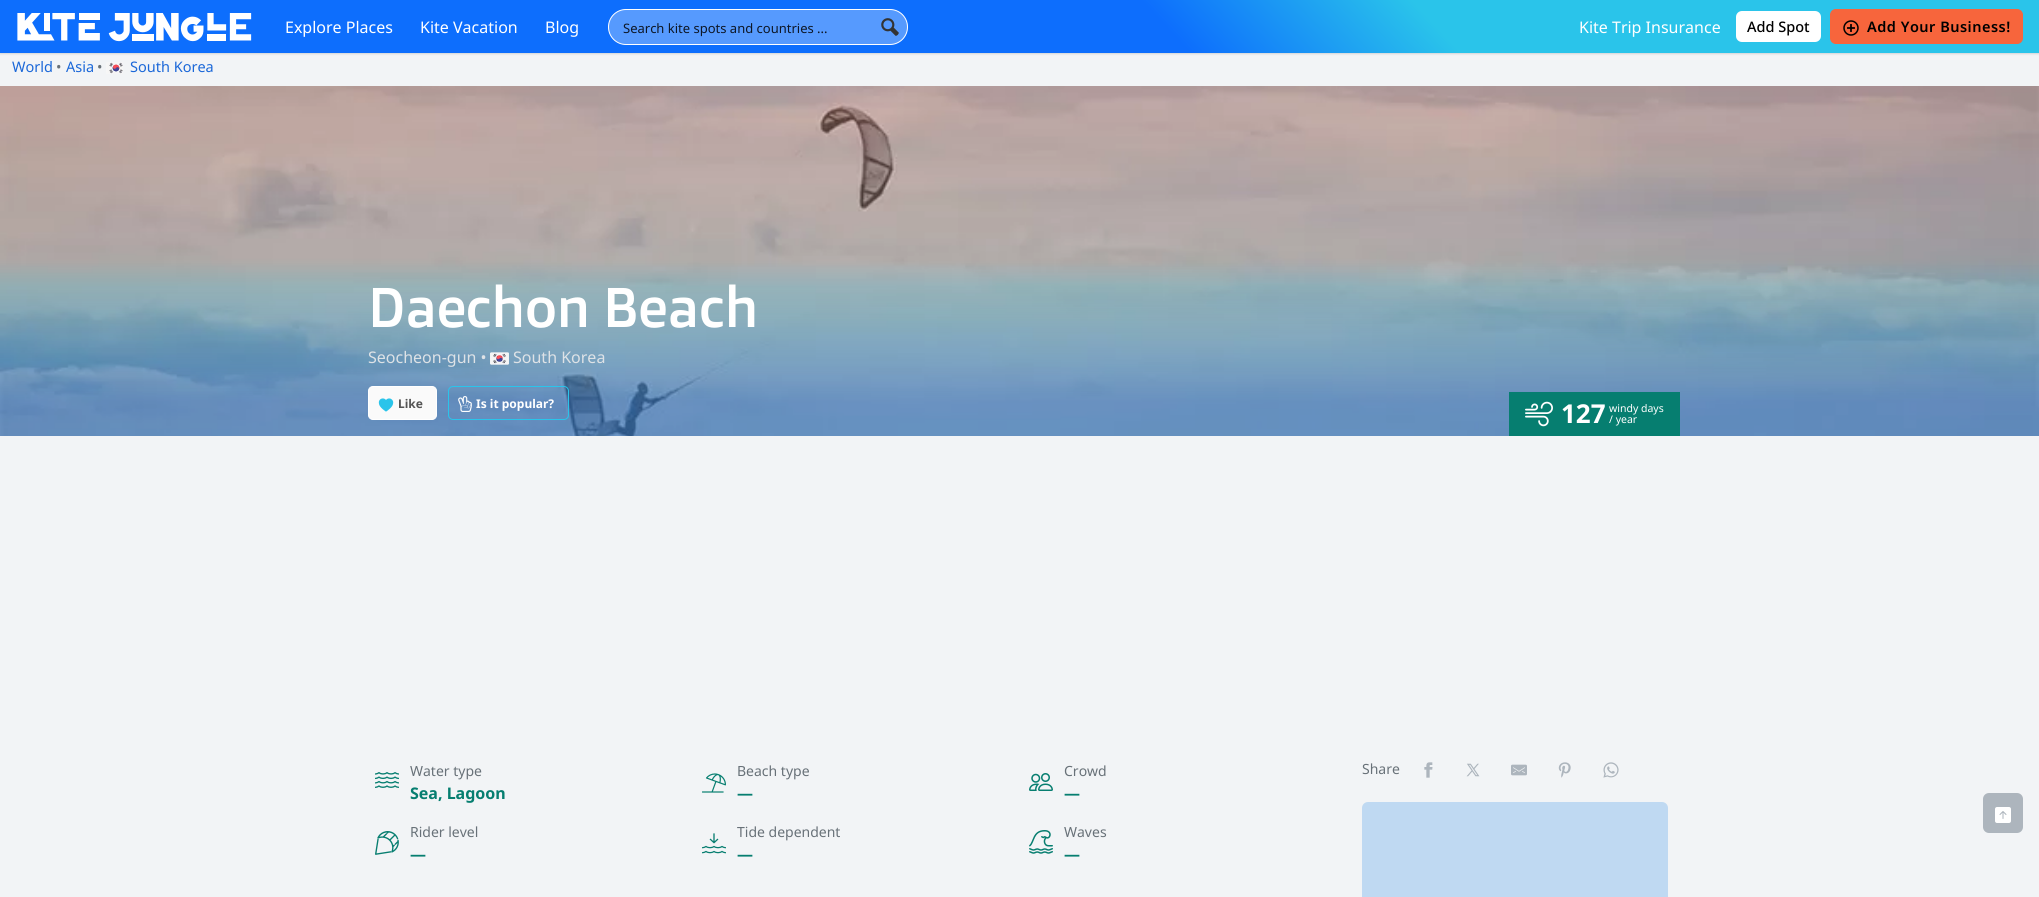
#include <cairo.h>
#include <math.h>
#include <stddef.h>


static void spaced_text(cairo_t *cr, double x, double y, const char *s, double letter, double word) {
    cairo_move_to(cr, x, y);
    while (*s) {
        char ch[5] = {0};
        int n = 0;
        do ch[n++] = *s++; while ((*s & 0xC0) == 0x80);
        cairo_show_text(cr, ch);
        cairo_rel_move_to(cr, letter + word * (*ch == ' '), 0);
    }
}

static void round_rect(cairo_t *cr, double x, double y, double w, double h, double r) {
    cairo_new_sub_path(cr);
    cairo_arc(cr, x + w - r, y + h - r, r, 0, M_PI / 2);
    cairo_arc(cr, x + r, y + h - r, r, M_PI / 2, M_PI);
    cairo_arc(cr, x + r, y + r, r, M_PI, 1.5 * M_PI);
    cairo_arc(cr, x + w - r, y + r, r, 1.5 * M_PI, 2 * M_PI);
    cairo_close_path(cr);
}

static void shadow(cairo_t *cr, double x, double y, double w, double h, double r, double blur, double alpha) {
    cairo_push_group_with_content(cr, CAIRO_CONTENT_ALPHA);
    cairo_set_operator(cr, CAIRO_OPERATOR_SOURCE);
    for (int i = 15; i >= -15 && fmin(w, h) + blur * i / 3 > 0; i -= 2) {
        double e = blur * i / 6;
        cairo_set_source_rgba(cr, 0, 0, 0, alpha * erfc((i - 1) / 8.5) / 2);
        round_rect(cr, x - e, y - e, w + 2 * e, h + 2 * e, fmax(0, fmin(r + e + blur * .6, fmin(w, h) / 2 + e)));
        cairo_fill(cr);
    }
    cairo_pattern_t *soft = cairo_pop_group(cr);
    cairo_mask(cr, soft);
    cairo_pattern_destroy(soft);
}

static void picture(cairo_t *cr, const char *path, double x, double y, double w, double h) {
    cairo_surface_t *image = cairo_image_surface_create_from_png(path);
    cairo_save(cr);
    cairo_set_source_surface(cr, image, x, y);
    cairo_rectangle(cr, x, y, w, h);
    cairo_fill(cr);
    cairo_restore(cr);
    cairo_surface_destroy(image);
}

int main(void) {
    cairo_surface_t *surface = cairo_image_surface_create(CAIRO_FORMAT_RGB24, 2039, 897);
    cairo_t *cr = cairo_create(surface);
    cairo_font_options_t *options = cairo_font_options_create();
    cairo_font_options_set_hint_metrics(options, CAIRO_HINT_METRICS_OFF);
    cairo_font_options_set_hint_style(options, CAIRO_HINT_STYLE_NONE);
    cairo_set_font_options(cr, options);
    cairo_set_miter_limit(cr, 4);
    cairo_pattern_t *gradient;
    cairo_set_source_rgb(cr, 0.949, 0.957, 0.961);
    cairo_paint(cr);
    cairo_set_source_rgb(cr, 0, 0, 0);
    shadow(cr, 0, 0, 2039, 53, 0, 1.5, 0.25);
    gradient = cairo_pattern_create_linear(461, 547, 1578, -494);
    cairo_pattern_add_color_stop_rgba(gradient, 0.57, 0.051, 0.431, 0.992, 1);
    cairo_pattern_add_color_stop_rgba(gradient, 0.7, 0.165, 0.769, 0.918, 1);
    cairo_set_source(cr, gradient);
    cairo_pattern_destroy(gradient);
    cairo_rectangle(cr, 0, 0, 2039, 53);
    cairo_fill(cr);
    picture(cr, "img1.png", 17, 13, 235, 29);
    cairo_select_font_face(cr, "Noto Sans", CAIRO_FONT_SLANT_NORMAL, CAIRO_FONT_WEIGHT_NORMAL);
    cairo_set_font_size(cr, 16);
    cairo_set_source_rgb(cr, 1, 1, 1);
    cairo_move_to(cr, 285, 33);
    cairo_show_text(cr, "Explore Places");
    cairo_move_to(cr, 420, 33);
    cairo_show_text(cr, "Kite Vacation");
    cairo_move_to(cr, 545, 33);
    cairo_show_text(cr, "Blog");
    cairo_set_source_rgb(cr, 0.337, 0.604, 0.996);
    round_rect(cr, 608.5, 9.5, 299, 35, 17.5);
    cairo_fill_preserve(cr);
    cairo_set_source_rgb(cr, 1, 1, 1);
    cairo_set_line_width(cr, 1);
    cairo_stroke(cr);
    cairo_set_font_size(cr, 13);
    cairo_set_source_rgb(cr, 0.051, 0.09, 0.149);
    cairo_move_to(cr, 623, 33);
    cairo_show_text(cr, "Search kite spots and countries ...");
    picture(cr, "img2.png", 881, 18, 18, 18);
    cairo_set_font_size(cr, 16);
    cairo_set_source_rgb(cr, 1, 1, 1);
    cairo_move_to(cr, 1579, 33);
    cairo_show_text(cr, "Kite Trip Insurance");
    round_rect(cr, 1736, 11, 85, 31, 6);
    cairo_fill(cr);
    cairo_select_font_face(cr, "Noto Sans Medium", CAIRO_FONT_SLANT_NORMAL, CAIRO_FONT_WEIGHT_NORMAL);
    cairo_set_font_size(cr, 14.5);
    cairo_set_source_rgb(cr, 0, 0, 0);
    cairo_move_to(cr, 1747, 32);
    cairo_show_text(cr, "Add Spot");
    cairo_set_source_rgb(cr, 0.965, 0.396, 0.235);
    round_rect(cr, 1830.5, 9.5, 192, 34, 5.5);
    cairo_fill_preserve(cr);
    cairo_stroke(cr);
    picture(cr, "img3.png", 1843, 20, 16, 16);
    cairo_select_font_face(cr, "Noto Sans SemiBold", CAIRO_FONT_SLANT_NORMAL, CAIRO_FONT_WEIGHT_NORMAL);
    cairo_set_source_rgb(cr, 0, 0, 0);
    spaced_text(cr, 1867, 32, "Add Your Business!", 0.5, 0);
    cairo_select_font_face(cr, "Noto Sans", CAIRO_FONT_SLANT_NORMAL, CAIRO_FONT_WEIGHT_NORMAL);
    cairo_set_source_rgb(cr, 0.102, 0.404, 0.847);
    cairo_move_to(cr, 12, 72);
    cairo_show_text(cr, "World");
    cairo_set_source_rgb(cr, 0.408, 0.443, 0.471);
    cairo_move_to(cr, 56, 72);
    cairo_show_text(cr, "•");
    cairo_set_source_rgb(cr, 0.102, 0.404, 0.847);
    cairo_move_to(cr, 66, 72);
    cairo_show_text(cr, "Asia");
    cairo_set_source_rgb(cr, 0.408, 0.443, 0.471);
    cairo_move_to(cr, 97, 72);
    cairo_show_text(cr, "•");
    picture(cr, "img4.png", 106, 62, 17, 12);
    cairo_set_source_rgb(cr, 0.102, 0.404, 0.847);
    cairo_move_to(cr, 130, 72);
    cairo_show_text(cr, "South Korea");
    picture(cr, "img5.png", 0, 86, 2039, 350);
    cairo_select_font_face(cr, "Doppio One", CAIRO_FONT_SLANT_NORMAL, CAIRO_FONT_WEIGHT_NORMAL);
    cairo_set_font_size(cr, 56);
    cairo_set_source_rgb(cr, 1, 1, 1);
    spaced_text(cr, 368, 327, "Daechon Beach", -0.75, 0);
    cairo_select_font_face(cr, "Noto Sans", CAIRO_FONT_SLANT_NORMAL, CAIRO_FONT_WEIGHT_NORMAL);
    cairo_set_font_size(cr, 16);
    cairo_set_source_rgb(cr, 0.871, 0.886, 0.902);
    cairo_move_to(cr, 368, 363);
    cairo_show_text(cr, "Seocheon-gun •");
    cairo_move_to(cr, 513, 363);
    cairo_show_text(cr, "South Korea");
    cairo_set_source_rgb(cr, 0.98, 0.98, 0.98);
    round_rect(cr, 368.5, 386.5, 68, 33, 4.5);
    cairo_fill_preserve(cr);
    cairo_set_source_rgb(cr, 1, 1, 1);
    cairo_stroke(cr);
    picture(cr, "img6.png", 378, 398, 16, 14);
    cairo_select_font_face(cr, "Noto Sans", CAIRO_FONT_SLANT_NORMAL, CAIRO_FONT_WEIGHT_BOLD);
    cairo_set_font_size(cr, 12);
    cairo_set_source_rgb(cr, 0.333, 0.333, 0.333);
    cairo_move_to(cr, 398, 408);
    cairo_show_text(cr, "Like");
    round_rect(cr, 448.5, 386.5, 120, 33, 4.5);
    cairo_set_source_rgb(cr, 0.165, 0.769, 0.918);
    cairo_stroke(cr);
    picture(cr, "img7.png", 458, 396, 14, 16);
    cairo_set_source_rgb(cr, 1, 1, 1);
    cairo_move_to(cr, 476, 408);
    cairo_show_text(cr, "Is it popular?");
    picture(cr, "img8.png", 490, 352, 19, 13);
    cairo_set_source_rgb(cr, 0.027, 0.494, 0.439);
    cairo_rectangle(cr, 1509, 392, 171, 44);
    cairo_fill(cr);
    picture(cr, "img9.png", 1525, 401, 28, 26);
    cairo_set_font_size(cr, 26);
    cairo_set_source_rgb(cr, 1, 1, 1);
    cairo_move_to(cr, 1561, 423);
    cairo_show_text(cr, "127");
    cairo_select_font_face(cr, "Noto Sans", CAIRO_FONT_SLANT_NORMAL, CAIRO_FONT_WEIGHT_NORMAL);
    cairo_set_font_size(cr, 10.5);
    cairo_move_to(cr, 1609, 412);
    cairo_show_text(cr, "windy days");
    cairo_move_to(cr, 1609, 423);
    cairo_show_text(cr, "/ year");
    picture(cr, "img10.png", 375, 772, 24, 16);
    cairo_set_font_size(cr, 14);
    cairo_set_source_rgb(cr, 0.408, 0.443, 0.471);
    cairo_move_to(cr, 410, 776);
    cairo_show_text(cr, "Water type");
    cairo_select_font_face(cr, "Noto Sans", CAIRO_FONT_SLANT_NORMAL, CAIRO_FONT_WEIGHT_BOLD);
    cairo_set_font_size(cr, 16);
    cairo_set_source_rgb(cr, 0.027, 0.494, 0.439);
    cairo_move_to(cr, 410, 799);
    cairo_show_text(cr, "Sea, Lagoon");
    picture(cr, "img11.png", 702, 773, 24, 20);
    cairo_select_font_face(cr, "Noto Sans", CAIRO_FONT_SLANT_NORMAL, CAIRO_FONT_WEIGHT_NORMAL);
    cairo_set_font_size(cr, 14);
    cairo_set_source_rgb(cr, 0.408, 0.443, 0.471);
    cairo_move_to(cr, 737, 776);
    cairo_show_text(cr, "Beach type");
    cairo_select_font_face(cr, "Noto Sans", CAIRO_FONT_SLANT_NORMAL, CAIRO_FONT_WEIGHT_BOLD);
    cairo_set_font_size(cr, 16);
    cairo_set_source_rgb(cr, 0.027, 0.494, 0.439);
    cairo_move_to(cr, 737, 799);
    cairo_show_text(cr, "—");
    picture(cr, "img12.png", 1029, 773, 24, 18);
    cairo_select_font_face(cr, "Noto Sans", CAIRO_FONT_SLANT_NORMAL, CAIRO_FONT_WEIGHT_NORMAL);
    cairo_set_font_size(cr, 14);
    cairo_set_source_rgb(cr, 0.408, 0.443, 0.471);
    cairo_move_to(cr, 1064, 776);
    cairo_show_text(cr, "Crowd");
    cairo_select_font_face(cr, "Noto Sans", CAIRO_FONT_SLANT_NORMAL, CAIRO_FONT_WEIGHT_BOLD);
    cairo_set_font_size(cr, 16);
    cairo_set_source_rgb(cr, 0.027, 0.494, 0.439);
    cairo_move_to(cr, 1064, 799);
    cairo_show_text(cr, "—");
    picture(cr, "img13.png", 375, 831, 24, 24);
    cairo_select_font_face(cr, "Noto Sans", CAIRO_FONT_SLANT_NORMAL, CAIRO_FONT_WEIGHT_NORMAL);
    cairo_set_font_size(cr, 14);
    cairo_set_source_rgb(cr, 0.408, 0.443, 0.471);
    cairo_move_to(cr, 410, 837);
    cairo_show_text(cr, "Rider level");
    cairo_select_font_face(cr, "Noto Sans", CAIRO_FONT_SLANT_NORMAL, CAIRO_FONT_WEIGHT_BOLD);
    cairo_set_font_size(cr, 16);
    cairo_set_source_rgb(cr, 0.027, 0.494, 0.439);
    cairo_move_to(cr, 410, 860);
    cairo_show_text(cr, "—");
    picture(cr, "img14.png", 702, 833, 24, 21);
    cairo_select_font_face(cr, "Noto Sans", CAIRO_FONT_SLANT_NORMAL, CAIRO_FONT_WEIGHT_NORMAL);
    cairo_set_font_size(cr, 14);
    cairo_set_source_rgb(cr, 0.408, 0.443, 0.471);
    cairo_move_to(cr, 737, 837);
    cairo_show_text(cr, "Tide dependent");
    cairo_select_font_face(cr, "Noto Sans", CAIRO_FONT_SLANT_NORMAL, CAIRO_FONT_WEIGHT_BOLD);
    cairo_set_font_size(cr, 16);
    cairo_set_source_rgb(cr, 0.027, 0.494, 0.439);
    cairo_move_to(cr, 737, 860);
    cairo_show_text(cr, "—");
    picture(cr, "img15.png", 1029, 830, 24, 24);
    cairo_select_font_face(cr, "Noto Sans", CAIRO_FONT_SLANT_NORMAL, CAIRO_FONT_WEIGHT_NORMAL);
    cairo_set_font_size(cr, 14);
    cairo_set_source_rgb(cr, 0.408, 0.443, 0.471);
    cairo_move_to(cr, 1064, 837);
    cairo_show_text(cr, "Waves");
    cairo_select_font_face(cr, "Noto Sans", CAIRO_FONT_SLANT_NORMAL, CAIRO_FONT_WEIGHT_BOLD);
    cairo_set_font_size(cr, 16);
    cairo_set_source_rgb(cr, 0.027, 0.494, 0.439);
    cairo_move_to(cr, 1064, 860);
    cairo_show_text(cr, "—");
    cairo_select_font_face(cr, "Noto Sans", CAIRO_FONT_SLANT_NORMAL, CAIRO_FONT_WEIGHT_NORMAL);
    cairo_set_font_size(cr, 14);
    cairo_set_source_rgb(cr, 0.408, 0.443, 0.471);
    cairo_move_to(cr, 1362, 774);
    cairo_show_text(cr, "Share");
    picture(cr, "img16.png", 1424, 762, 9, 16);
    picture(cr, "img17.png", 1466, 763, 14, 14);
    picture(cr, "img18.png", 1511, 764, 16, 12);
    picture(cr, "img19.png", 1558, 762, 13, 16);
    picture(cr, "img20.png", 1603, 762, 16, 16);
    cairo_set_source_rgb(cr, 0.749, 0.851, 0.949);
    round_rect(cr, 1362, 802, 306, 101, 6);
    cairo_fill(cr);
    cairo_set_source_rgb(cr, 0.678, 0.71, 0.741);
    round_rect(cr, 1983, 793, 40, 40, 6);
    cairo_fill(cr);
    picture(cr, "img21.png", 1995, 807, 16, 16);
    cairo_surface_write_to_png(surface, "page.png");
    cairo_font_options_destroy(options);
    cairo_destroy(cr);
    cairo_surface_destroy(surface);
    return 0;
}
